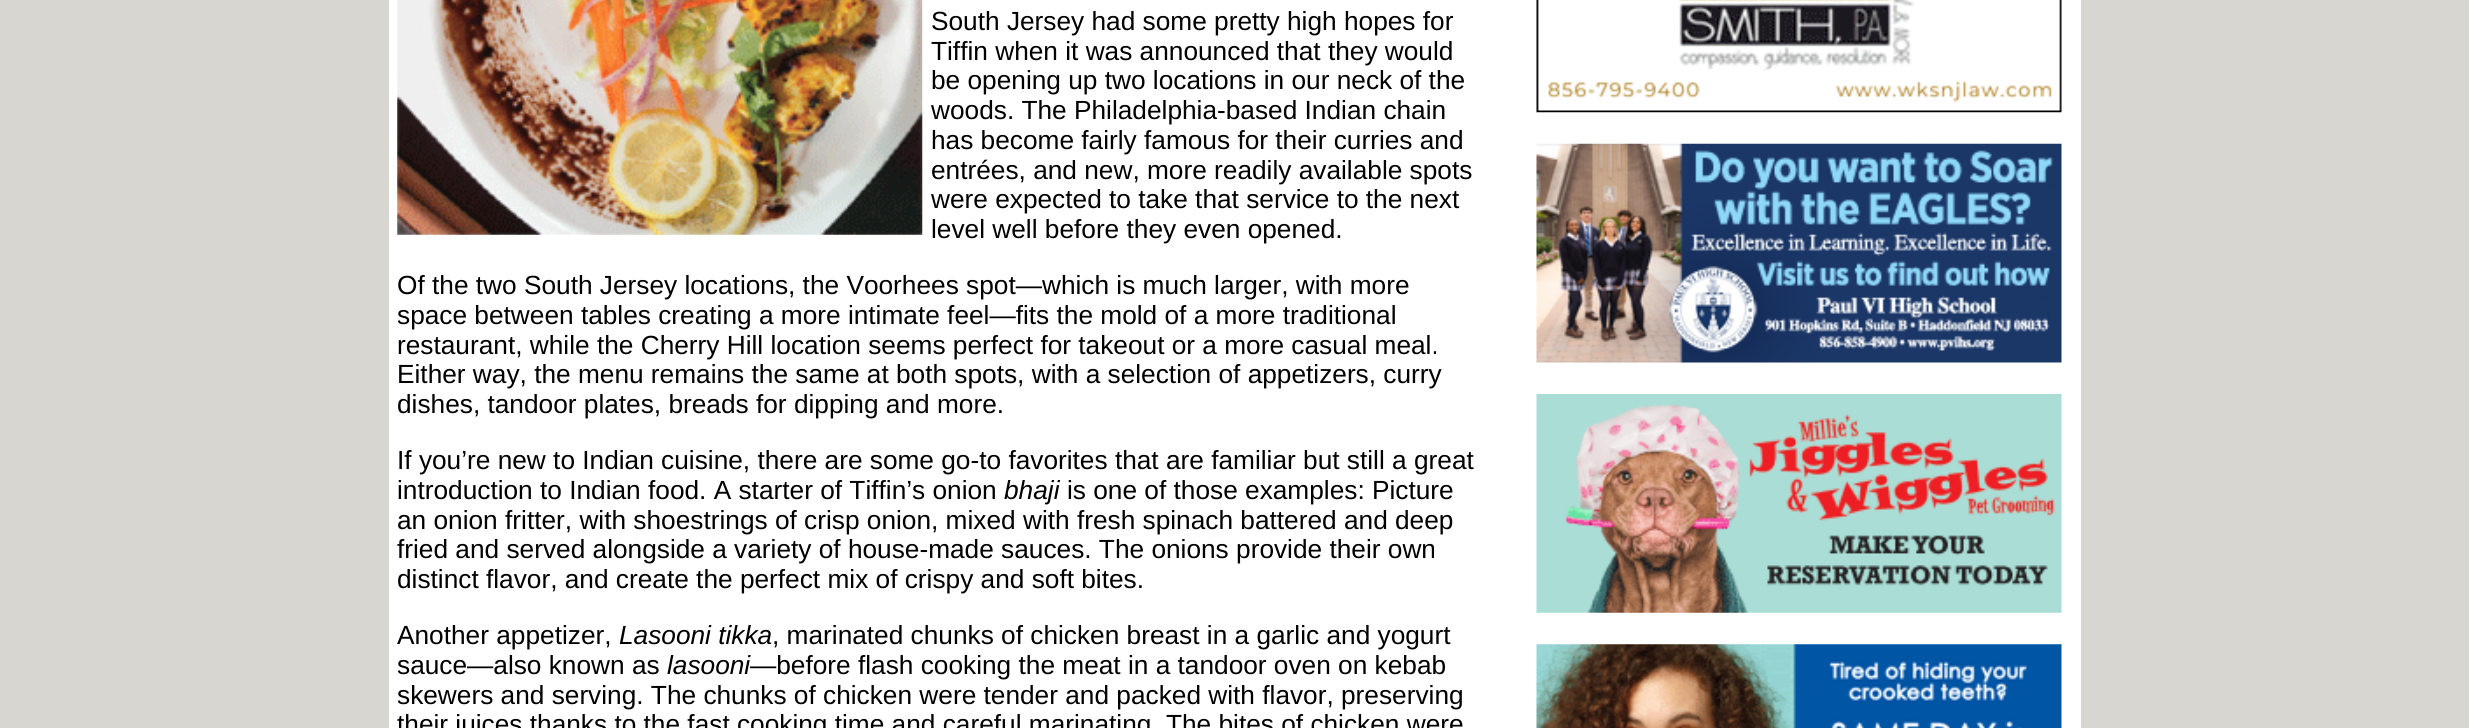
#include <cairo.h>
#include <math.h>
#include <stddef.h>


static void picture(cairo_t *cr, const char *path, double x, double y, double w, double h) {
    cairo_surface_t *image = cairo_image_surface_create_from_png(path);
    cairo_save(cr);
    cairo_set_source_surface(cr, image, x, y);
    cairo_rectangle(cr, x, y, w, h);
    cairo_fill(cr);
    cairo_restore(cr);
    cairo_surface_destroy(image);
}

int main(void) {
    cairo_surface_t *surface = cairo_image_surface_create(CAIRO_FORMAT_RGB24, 2469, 728);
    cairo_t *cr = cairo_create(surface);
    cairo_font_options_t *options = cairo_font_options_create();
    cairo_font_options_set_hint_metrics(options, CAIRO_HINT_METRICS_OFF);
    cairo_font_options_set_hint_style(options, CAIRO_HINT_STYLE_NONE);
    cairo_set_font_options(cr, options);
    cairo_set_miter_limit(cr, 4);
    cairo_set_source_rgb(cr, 0.847, 0.839, 0.816);
    cairo_paint(cr);
    cairo_set_source_rgb(cr, 1, 1, 1);
    cairo_rectangle(cr, 389, 0, 1692, 728);
    cairo_fill(cr);
    picture(cr, "img1.png", 397, 0, 526, 235);
    cairo_select_font_face(cr, "Liberation Sans", CAIRO_FONT_SLANT_NORMAL, CAIRO_FONT_WEIGHT_NORMAL);
    cairo_set_font_size(cr, 26.25);
    cairo_set_source_rgb(cr, 0, 0, 0);
    cairo_move_to(cr, 931, 30);
    cairo_show_text(cr, "South Jersey had some pretty high hopes for");
    cairo_move_to(cr, 931, 60);
    cairo_show_text(cr, "Tiffin when it was announced that they would");
    cairo_move_to(cr, 931, 89);
    cairo_show_text(cr, "be opening up two locations in our neck of the");
    cairo_move_to(cr, 931, 119);
    cairo_show_text(cr, "woods. The Philadelphia-based Indian chain");
    cairo_move_to(cr, 931, 149);
    cairo_show_text(cr, "has become fairly famous for their curries and");
    cairo_move_to(cr, 931, 179);
    cairo_show_text(cr, "entrées, and new, more readily available spots");
    cairo_move_to(cr, 931, 208);
    cairo_show_text(cr, "were expected to take that service to the next");
    cairo_move_to(cr, 931, 238);
    cairo_show_text(cr, "level well before they even opened.");
    cairo_move_to(cr, 397, 294);
    cairo_show_text(cr, "Of the two South Jersey locations, the Voorhees spot—which is much larger, with more");
    cairo_move_to(cr, 397, 324);
    cairo_show_text(cr, "space between tables creating a more intimate feel—fits the mold of a more traditional");
    cairo_move_to(cr, 397, 354);
    cairo_show_text(cr, "restaurant, while the Cherry Hill location seems perfect for takeout or a more casual meal.");
    cairo_move_to(cr, 397, 383);
    cairo_show_text(cr, "Either way, the menu remains the same at both spots, with a selection of appetizers, curry");
    cairo_move_to(cr, 397, 413);
    cairo_show_text(cr, "dishes, tandoor plates, breads for dipping and more.");
    cairo_move_to(cr, 397, 469);
    cairo_show_text(cr, "If you’re new to Indian cuisine, there are some go-to favorites that are familiar but still a great");
    cairo_move_to(cr, 397, 499);
    cairo_show_text(cr, "introduction to Indian food. A starter of Tiffin’s onion");
    cairo_select_font_face(cr, "Liberation Sans", CAIRO_FONT_SLANT_ITALIC, CAIRO_FONT_WEIGHT_NORMAL);
    cairo_move_to(cr, 1004, 499);
    cairo_show_text(cr, "bhaji");
    cairo_select_font_face(cr, "Liberation Sans", CAIRO_FONT_SLANT_NORMAL, CAIRO_FONT_WEIGHT_NORMAL);
    cairo_move_to(cr, 1067, 499);
    cairo_show_text(cr, "is one of those examples: Picture");
    cairo_move_to(cr, 397, 529);
    cairo_show_text(cr, "an onion fritter, with shoestrings of crisp onion, mixed with fresh spinach battered and deep");
    cairo_move_to(cr, 397, 558);
    cairo_show_text(cr, "fried and served alongside a variety of house-made sauces. The onions provide their own");
    cairo_move_to(cr, 397, 588);
    cairo_show_text(cr, "distinct flavor, and create the perfect mix of crispy and soft bites.");
    cairo_move_to(cr, 397, 644);
    cairo_show_text(cr, "Another appetizer,");
    cairo_select_font_face(cr, "Liberation Sans", CAIRO_FONT_SLANT_ITALIC, CAIRO_FONT_WEIGHT_NORMAL);
    cairo_move_to(cr, 619, 644);
    cairo_show_text(cr, "Lasooni tikka");
    cairo_select_font_face(cr, "Liberation Sans", CAIRO_FONT_SLANT_NORMAL, CAIRO_FONT_WEIGHT_NORMAL);
    cairo_move_to(cr, 772, 644);
    cairo_show_text(cr, ", marinated chunks of chicken breast in a garlic and yogurt");
    cairo_move_to(cr, 397, 674);
    cairo_show_text(cr, "sauce—also known as");
    cairo_select_font_face(cr, "Liberation Sans", CAIRO_FONT_SLANT_ITALIC, CAIRO_FONT_WEIGHT_NORMAL);
    cairo_move_to(cr, 667, 674);
    cairo_show_text(cr, "lasooni");
    cairo_select_font_face(cr, "Liberation Sans", CAIRO_FONT_SLANT_NORMAL, CAIRO_FONT_WEIGHT_NORMAL);
    cairo_move_to(cr, 750, 674);
    cairo_show_text(cr, "—before flash cooking the meat in a tandoor oven on kebab");
    cairo_move_to(cr, 397, 704);
    cairo_show_text(cr, "skewers and serving. The chunks of chicken were tender and packed with flavor, preserving");
    cairo_move_to(cr, 397, 733);
    cairo_show_text(cr, "their juices thanks to the fast cooking time and careful marinating. The bites of chicken were");
    picture(cr, "img2.png", 1536, 0, 526, 113);
    picture(cr, "img3.png", 1536, 143, 526, 220);
    picture(cr, "img4.png", 1536, 394, 526, 219);
    picture(cr, "img5.png", 1536, 644, 526, 84);
    cairo_surface_write_to_png(surface, "page.png");
    cairo_font_options_destroy(options);
    cairo_destroy(cr);
    cairo_surface_destroy(surface);
    return 0;
}
